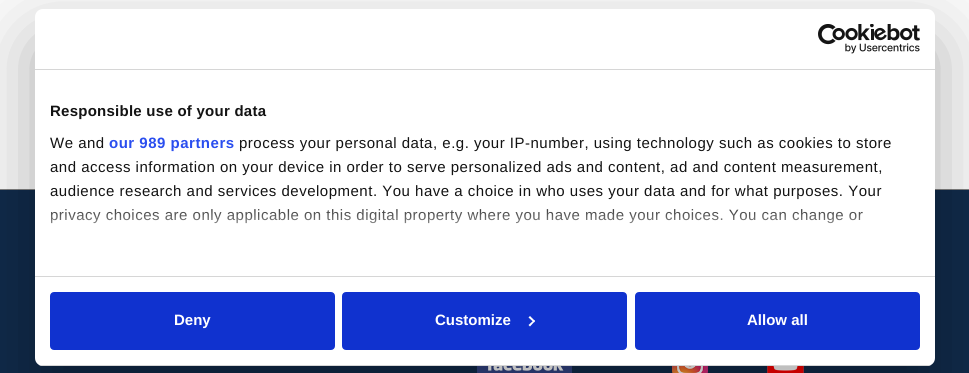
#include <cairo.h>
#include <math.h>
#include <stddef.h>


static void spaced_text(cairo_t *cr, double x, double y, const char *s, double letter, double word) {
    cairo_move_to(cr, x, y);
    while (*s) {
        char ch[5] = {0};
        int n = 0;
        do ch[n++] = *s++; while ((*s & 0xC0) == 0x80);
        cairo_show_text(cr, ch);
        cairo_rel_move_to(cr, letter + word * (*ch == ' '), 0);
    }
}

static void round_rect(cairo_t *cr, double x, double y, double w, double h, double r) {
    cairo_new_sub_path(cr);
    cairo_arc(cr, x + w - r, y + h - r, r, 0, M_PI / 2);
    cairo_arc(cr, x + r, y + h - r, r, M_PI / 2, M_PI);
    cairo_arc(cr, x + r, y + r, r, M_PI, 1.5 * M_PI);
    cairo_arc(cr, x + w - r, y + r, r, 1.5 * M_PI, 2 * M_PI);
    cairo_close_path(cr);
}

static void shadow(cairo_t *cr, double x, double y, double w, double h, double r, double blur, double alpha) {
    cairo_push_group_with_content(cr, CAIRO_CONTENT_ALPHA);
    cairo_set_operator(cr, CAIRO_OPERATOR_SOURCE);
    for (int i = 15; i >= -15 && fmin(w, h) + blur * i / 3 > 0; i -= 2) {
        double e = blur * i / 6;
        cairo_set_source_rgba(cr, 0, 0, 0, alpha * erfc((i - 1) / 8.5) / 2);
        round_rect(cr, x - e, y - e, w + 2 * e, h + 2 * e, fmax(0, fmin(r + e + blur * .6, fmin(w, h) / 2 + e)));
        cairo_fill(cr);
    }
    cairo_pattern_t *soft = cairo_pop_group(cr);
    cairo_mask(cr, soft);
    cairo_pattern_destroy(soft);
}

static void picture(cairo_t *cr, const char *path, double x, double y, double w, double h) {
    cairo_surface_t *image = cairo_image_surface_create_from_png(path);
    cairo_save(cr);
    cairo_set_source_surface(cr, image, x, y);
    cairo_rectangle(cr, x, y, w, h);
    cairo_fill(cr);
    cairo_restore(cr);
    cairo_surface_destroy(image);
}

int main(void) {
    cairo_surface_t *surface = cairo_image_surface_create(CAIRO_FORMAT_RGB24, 969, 373);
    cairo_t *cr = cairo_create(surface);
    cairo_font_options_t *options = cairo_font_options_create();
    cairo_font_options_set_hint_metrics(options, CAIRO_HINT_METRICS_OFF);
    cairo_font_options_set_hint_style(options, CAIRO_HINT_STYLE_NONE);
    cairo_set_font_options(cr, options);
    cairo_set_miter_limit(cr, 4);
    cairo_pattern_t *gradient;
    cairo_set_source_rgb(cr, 0.969, 0.969, 0.969);
    cairo_paint(cr);
    cairo_set_source_rgb(cr, 0.502, 0.502, 0.502);
    cairo_rectangle(cr, 0, 189, 969, 1);
    cairo_fill(cr);
    cairo_set_source_rgb(cr, 0.063, 0.165, 0.286);
    cairo_rectangle(cr, 0, 190, 969, 183);
    cairo_fill(cr);
    picture(cr, "img2.png", 477, 366, 95, 7);
    picture(cr, "img3.png", 672, 366, 36, 7);
    picture(cr, "img4.png", 767, 366, 37, 7);
    cairo_set_source_rgb(cr, 0, 0, 0);
    shadow(cr, 35, 41, 900, 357, 8, 34, 0.3);
    cairo_set_source_rgb(cr, 1, 1, 1);
    round_rect(cr, 35, 9, 900, 357, 8);
    cairo_fill(cr);
    cairo_set_source_rgb(cr, 0.839, 0.839, 0.839);
    cairo_rectangle(cr, 35, 69, 900, 1);
    cairo_fill(cr);
    picture(cr, "img1.png", 818, 24, 102, 30);
    cairo_rectangle(cr, 35, 276, 900, 1);
    cairo_fill(cr);
    cairo_select_font_face(cr, "Liberation Sans", CAIRO_FONT_SLANT_NORMAL, CAIRO_FONT_WEIGHT_BOLD);
    cairo_set_font_size(cr, 15);
    cairo_set_source_rgb(cr, 0.078, 0.078, 0.078);
    spaced_text(cr, 50, 116, "Responsible use of your data", 0.25, 0);
    cairo_select_font_face(cr, "Liberation Sans", CAIRO_FONT_SLANT_NORMAL, CAIRO_FONT_WEIGHT_NORMAL);
    spaced_text(cr, 50, 148, "We and", 0.5, 0);
    cairo_select_font_face(cr, "Liberation Sans", CAIRO_FONT_SLANT_NORMAL, CAIRO_FONT_WEIGHT_BOLD);
    cairo_set_source_rgb(cr, 0.165, 0.306, 0.937);
    spaced_text(cr, 109, 148, "our 989 partners", 0.5, 0);
    cairo_select_font_face(cr, "Liberation Sans", CAIRO_FONT_SLANT_NORMAL, CAIRO_FONT_WEIGHT_NORMAL);
    cairo_set_source_rgb(cr, 0.078, 0.078, 0.078);
    spaced_text(cr, 239, 148, "process your personal data, e.g. your IP-number, using technology such as cookies to store", 0.5, 0);
    spaced_text(cr, 50, 172, "and access information on your device in order to serve personalized ads and content, ad and content measurement,", 0.5, 0);
    spaced_text(cr, 50, 196, "audience research and services development. You have a choice in who uses your data and for what purposes. Your", 0.5, 0);
    spaced_text(cr, 50, 220, "privacy choices are only applicable on this digital property where you have made your choices. You can change or", 0.5, 0);
    gradient = cairo_pattern_create_linear(479, 276, 479, 201);
    cairo_pattern_add_color_stop_rgba(gradient, 0, 1, 1, 1, 1);
    cairo_pattern_add_color_stop_rgba(gradient, 0.5, 1, 1, 1, 0.8);
    cairo_pattern_add_color_stop_rgba(gradient, 1, 1, 1, 1, 0);
    cairo_set_source(cr, gradient);
    cairo_pattern_destroy(gradient);
    cairo_rectangle(cr, 50, 209, 812, 15);
    cairo_fill(cr);
    cairo_save(cr);
    round_rect(cr, 35, 9, 900, 357, 8);
    cairo_clip(cr);
    cairo_set_source_rgb(cr, 0.839, 0.839, 0.839);
    cairo_rectangle(cr, 35, 365, 900, 1);
    cairo_fill(cr);
    cairo_restore(cr);
    cairo_set_source_rgb(cr, 0.063, 0.196, 0.812);
    round_rect(cr, 51, 293, 283, 56, 3);
    cairo_fill_preserve(cr);
    cairo_stroke(cr);
    cairo_select_font_face(cr, "Liberation Sans", CAIRO_FONT_SLANT_NORMAL, CAIRO_FONT_WEIGHT_BOLD);
    cairo_set_source_rgb(cr, 1, 1, 1);
    cairo_move_to(cr, 174, 325);
    cairo_show_text(cr, "Deny");
    cairo_set_source_rgb(cr, 0.063, 0.196, 0.812);
    round_rect(cr, 343, 293, 283, 56, 3);
    cairo_fill_preserve(cr);
    cairo_stroke(cr);
    cairo_set_source_rgb(cr, 1, 1, 1);
    cairo_move_to(cr, 435, 325);
    cairo_show_text(cr, "Customize");
    cairo_new_path(cr);
    cairo_move_to(cr, 530, 316);
    cairo_line_to(cr, 535, 321);
    cairo_line_to(cr, 534, 322.5);
    cairo_line_to(cr, 528.5, 317.5);
    cairo_close_path(cr);
    cairo_fill(cr);
    cairo_new_path(cr);
    cairo_move_to(cr, 534, 320);
    cairo_line_to(cr, 535, 321);
    cairo_line_to(cr, 530, 326.5);
    cairo_line_to(cr, 528.5, 325);
    cairo_close_path(cr);
    cairo_fill(cr);
    cairo_set_source_rgb(cr, 0.063, 0.196, 0.812);
    round_rect(cr, 636, 293, 283, 56, 3);
    cairo_fill_preserve(cr);
    cairo_stroke(cr);
    cairo_set_source_rgb(cr, 1, 1, 1);
    cairo_move_to(cr, 747, 325);
    cairo_show_text(cr, "Allow all");
    cairo_surface_write_to_png(surface, "page.png");
    cairo_font_options_destroy(options);
    cairo_destroy(cr);
    cairo_surface_destroy(surface);
    return 0;
}
